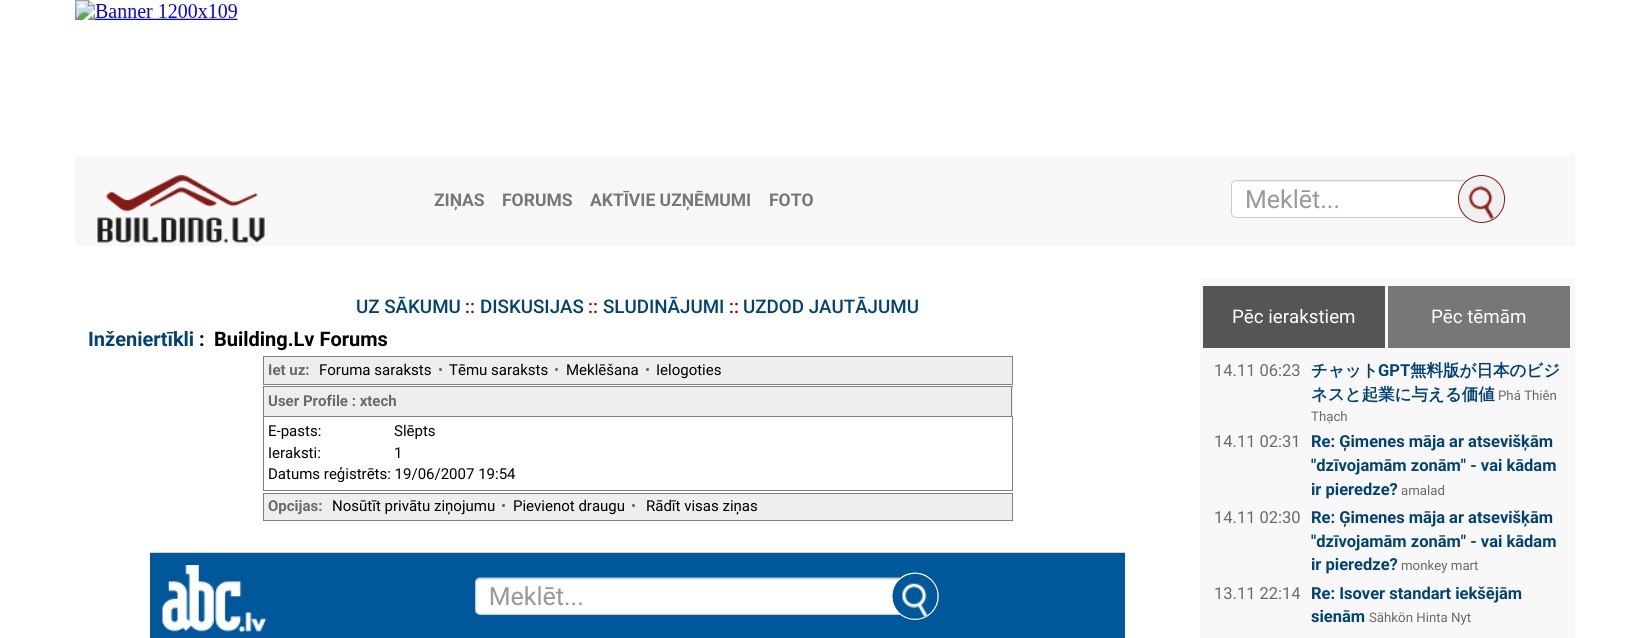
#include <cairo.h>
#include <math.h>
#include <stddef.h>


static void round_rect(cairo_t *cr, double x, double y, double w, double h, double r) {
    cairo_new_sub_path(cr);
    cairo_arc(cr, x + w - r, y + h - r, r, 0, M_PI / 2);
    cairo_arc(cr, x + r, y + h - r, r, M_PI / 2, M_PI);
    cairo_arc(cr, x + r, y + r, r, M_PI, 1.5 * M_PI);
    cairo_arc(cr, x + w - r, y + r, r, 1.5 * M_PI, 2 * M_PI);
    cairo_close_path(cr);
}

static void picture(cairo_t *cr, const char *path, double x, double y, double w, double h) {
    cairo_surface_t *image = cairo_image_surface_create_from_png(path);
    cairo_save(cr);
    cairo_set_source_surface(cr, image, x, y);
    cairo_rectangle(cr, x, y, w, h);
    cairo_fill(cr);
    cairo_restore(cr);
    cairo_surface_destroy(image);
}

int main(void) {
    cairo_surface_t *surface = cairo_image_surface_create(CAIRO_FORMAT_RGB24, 1649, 638);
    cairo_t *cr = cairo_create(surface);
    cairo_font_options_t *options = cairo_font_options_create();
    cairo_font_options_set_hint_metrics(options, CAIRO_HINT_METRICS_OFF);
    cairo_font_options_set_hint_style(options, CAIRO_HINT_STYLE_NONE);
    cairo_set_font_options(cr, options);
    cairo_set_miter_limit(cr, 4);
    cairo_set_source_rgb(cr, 1, 1, 1);
    cairo_paint(cr);
    picture(cr, "img1.png", 75, 0, 163, 20);
    cairo_set_source_rgb(cr, 0.969, 0.969, 0.969);
    cairo_rectangle(cr, 75, 155, 1500, 91);
    cairo_fill(cr);
    picture(cr, "img2.png", 97, 175, 168, 68);
    cairo_select_font_face(cr, "Roboto", CAIRO_FONT_SLANT_NORMAL, CAIRO_FONT_WEIGHT_BOLD);
    cairo_set_font_size(cr, 17.5);
    cairo_set_source_rgb(cr, 0.467, 0.467, 0.467);
    cairo_move_to(cr, 434, 206);
    cairo_show_text(cr, "ZIŅAS");
    cairo_move_to(cr, 502, 206);
    cairo_show_text(cr, "FORUMS");
    cairo_move_to(cr, 590, 206);
    cairo_show_text(cr, "AKTĪVIE UZŅĒMUMI");
    cairo_move_to(cr, 769, 206);
    cairo_show_text(cr, "FOTO");
    cairo_set_source_rgb(cr, 1, 1, 1);
    cairo_new_path(cr);
    cairo_move_to(cr, 1236, 180);
    cairo_line_to(cr, 1466, 180);
    cairo_line_to(cr, 1466, 218);
    cairo_line_to(cr, 1236, 218);
    cairo_curve_to(cr, 1233, 218, 1231, 216, 1231, 213);
    cairo_line_to(cr, 1231, 185);
    cairo_curve_to(cr, 1231, 182, 1233, 180, 1236, 180);
    cairo_close_path(cr);
    cairo_fill(cr);
    cairo_set_source_rgb(cr, 0.925, 0.925, 0.925);
    cairo_new_path(cr);
    cairo_move_to(cr, 1236, 182);
    cairo_line_to(cr, 1465, 182);
    cairo_line_to(cr, 1465, 181);
    cairo_line_to(cr, 1237, 181);
    cairo_line_to(cr, 1235, 182);
    cairo_line_to(cr, 1234, 183);
    cairo_close_path(cr);
    cairo_fill(cr);
    cairo_new_path(cr);
    cairo_move_to(cr, 1236, 180.5);
    cairo_line_to(cr, 1465.5, 180.5);
    cairo_line_to(cr, 1465.5, 217.5);
    cairo_line_to(cr, 1236, 217.5);
    cairo_curve_to(cr, 1233.5, 217.5, 1231.5, 215.5, 1231.5, 213);
    cairo_line_to(cr, 1231.5, 185);
    cairo_curve_to(cr, 1231.5, 182.5, 1233.5, 180.5, 1236, 180.5);
    cairo_close_path(cr);
    cairo_set_source_rgb(cr, 0.8, 0.8, 0.8);
    cairo_set_line_width(cr, 1);
    cairo_stroke(cr);
    cairo_select_font_face(cr, "Roboto", CAIRO_FONT_SLANT_NORMAL, CAIRO_FONT_WEIGHT_NORMAL);
    cairo_set_font_size(cr, 25);
    cairo_set_source_rgb(cr, 0.6, 0.6, 0.6);
    cairo_move_to(cr, 1245, 208);
    cairo_show_text(cr, "Meklēt...");
    cairo_set_source_rgb(cr, 0.941, 0.941, 0.941);
    round_rect(cr, 1458.5, 175.5, 46, 47, 23);
    cairo_fill_preserve(cr);
    cairo_set_source_rgb(cr, 0.514, 0.102, 0.082);
    cairo_stroke(cr);
    picture(cr, "img3.png", 1468, 186, 26, 33);
    cairo_select_font_face(cr, "Roboto Medium", CAIRO_FONT_SLANT_NORMAL, CAIRO_FONT_WEIGHT_NORMAL);
    cairo_set_font_size(cr, 18.75);
    cairo_set_source_rgb(cr, 0, 0.259, 0.463);
    cairo_move_to(cr, 356, 313);
    cairo_show_text(cr, "UZ SĀKUMU");
    cairo_set_source_rgb(cr, 0.557, 0.016, 0.047);
    cairo_move_to(cr, 465, 313);
    cairo_show_text(cr, "::");
    cairo_set_source_rgb(cr, 0, 0.259, 0.463);
    cairo_move_to(cr, 480, 313);
    cairo_show_text(cr, "DISKUSIJAS");
    cairo_set_source_rgb(cr, 0.557, 0.016, 0.047);
    cairo_move_to(cr, 588, 313);
    cairo_show_text(cr, "::");
    cairo_set_source_rgb(cr, 0, 0.259, 0.463);
    cairo_move_to(cr, 603, 313);
    cairo_show_text(cr, "SLUDINĀJUMI");
    cairo_set_source_rgb(cr, 0.557, 0.016, 0.047);
    cairo_move_to(cr, 729, 313);
    cairo_show_text(cr, "::");
    cairo_set_source_rgb(cr, 0, 0.259, 0.463);
    cairo_move_to(cr, 743, 313);
    cairo_show_text(cr, "UZDOD JAUTĀJUMU");
    cairo_select_font_face(cr, "Roboto", CAIRO_FONT_SLANT_NORMAL, CAIRO_FONT_WEIGHT_BOLD);
    cairo_set_font_size(cr, 20);
    cairo_move_to(cr, 88, 346);
    cairo_show_text(cr, "Inženiertīkli");
    cairo_set_source_rgb(cr, 0, 0, 0);
    cairo_move_to(cr, 199, 346);
    cairo_show_text(cr, ":");
    cairo_move_to(cr, 214, 346);
    cairo_show_text(cr, "Building.Lv Forums");
    cairo_set_source_rgb(cr, 0.933, 0.933, 0.933);
    cairo_rectangle(cr, 263.5, 356.5, 749, 28);
    cairo_fill_preserve(cr);
    cairo_set_source_rgb(cr, 0.502, 0.502, 0.502);
    cairo_stroke(cr);
    cairo_set_font_size(cr, 15);
    cairo_set_source_rgb(cr, 0.416, 0.416, 0.416);
    cairo_move_to(cr, 268, 375);
    cairo_show_text(cr, "Iet uz:");
    cairo_select_font_face(cr, "Roboto", CAIRO_FONT_SLANT_NORMAL, CAIRO_FONT_WEIGHT_NORMAL);
    cairo_set_source_rgb(cr, 0, 0, 0);
    cairo_move_to(cr, 319, 375);
    cairo_show_text(cr, "Foruma saraksts");
    cairo_set_source_rgb(cr, 0.416, 0.416, 0.416);
    cairo_move_to(cr, 438, 375);
    cairo_show_text(cr, "•");
    cairo_set_source_rgb(cr, 0, 0, 0);
    cairo_move_to(cr, 449, 375);
    cairo_show_text(cr, "Tēmu saraksts");
    cairo_set_source_rgb(cr, 0.416, 0.416, 0.416);
    cairo_move_to(cr, 554, 375);
    cairo_show_text(cr, "•");
    cairo_set_source_rgb(cr, 0, 0, 0);
    cairo_move_to(cr, 566, 375);
    cairo_show_text(cr, "Meklēšana");
    cairo_set_source_rgb(cr, 0.416, 0.416, 0.416);
    cairo_move_to(cr, 645, 375);
    cairo_show_text(cr, "•");
    cairo_set_source_rgb(cr, 0, 0, 0);
    cairo_move_to(cr, 656, 375);
    cairo_show_text(cr, "Ielogoties");
    cairo_set_source_rgb(cr, 0.933, 0.933, 0.933);
    cairo_rectangle(cr, 264, 387, 749, 29);
    cairo_fill(cr);
    cairo_set_source_rgb(cr, 0.502, 0.502, 0.502);
    cairo_rectangle(cr, 263, 386, 750, 1);
    cairo_fill(cr);
    cairo_rectangle(cr, 1011, 386, 1, 30);
    cairo_fill(cr);
    cairo_rectangle(cr, 263, 386, 1, 30);
    cairo_fill(cr);
    cairo_select_font_face(cr, "Roboto", CAIRO_FONT_SLANT_NORMAL, CAIRO_FONT_WEIGHT_BOLD);
    cairo_set_source_rgb(cr, 0.416, 0.416, 0.416);
    cairo_move_to(cr, 268, 406);
    cairo_show_text(cr, "User Profile : xtech");
    cairo_rectangle(cr, 263.5, 416.5, 749, 74);
    cairo_set_source_rgb(cr, 0.502, 0.502, 0.502);
    cairo_stroke(cr);
    cairo_select_font_face(cr, "Roboto", CAIRO_FONT_SLANT_NORMAL, CAIRO_FONT_WEIGHT_NORMAL);
    cairo_set_source_rgb(cr, 0, 0, 0);
    cairo_move_to(cr, 268, 436);
    cairo_show_text(cr, "E-pasts:");
    cairo_move_to(cr, 394, 436);
    cairo_show_text(cr, "Slēpts");
    cairo_move_to(cr, 268, 458);
    cairo_show_text(cr, "Ieraksti:");
    cairo_move_to(cr, 394, 458);
    cairo_show_text(cr, "1");
    cairo_move_to(cr, 268, 479);
    cairo_show_text(cr, "Datums reģistrēts: 19/06/2007 19:54");
    cairo_set_source_rgb(cr, 0.933, 0.933, 0.933);
    cairo_rectangle(cr, 263.5, 493.5, 749, 27);
    cairo_fill_preserve(cr);
    cairo_set_source_rgb(cr, 0.502, 0.502, 0.502);
    cairo_stroke(cr);
    cairo_select_font_face(cr, "Roboto", CAIRO_FONT_SLANT_NORMAL, CAIRO_FONT_WEIGHT_BOLD);
    cairo_set_source_rgb(cr, 0.416, 0.416, 0.416);
    cairo_move_to(cr, 268, 511);
    cairo_show_text(cr, "Opcijas:");
    cairo_select_font_face(cr, "Roboto", CAIRO_FONT_SLANT_NORMAL, CAIRO_FONT_WEIGHT_NORMAL);
    cairo_set_source_rgb(cr, 0, 0, 0);
    cairo_move_to(cr, 332, 511);
    cairo_show_text(cr, "Nosūtīt privātu ziņojumu");
    cairo_set_source_rgb(cr, 0.416, 0.416, 0.416);
    cairo_move_to(cr, 501, 511);
    cairo_show_text(cr, "•");
    cairo_set_source_rgb(cr, 0, 0, 0);
    cairo_move_to(cr, 513, 511);
    cairo_show_text(cr, "Pievienot draugu");
    cairo_set_source_rgb(cr, 0.416, 0.416, 0.416);
    cairo_move_to(cr, 631, 511);
    cairo_show_text(cr, "•");
    cairo_set_source_rgb(cr, 0, 0, 0);
    cairo_move_to(cr, 646, 511);
    cairo_show_text(cr, "Rādīt visas ziņas");
    picture(cr, "img4.png", 150, 552, 975, 86);
    cairo_set_source_rgb(cr, 0.969, 0.969, 0.969);
    cairo_rectangle(cr, 1201, 279, 373, 359);
    cairo_fill(cr);
    cairo_rectangle(cr, 1200, 278, 375, 1);
    cairo_fill(cr);
    cairo_new_path(cr);
    cairo_move_to(cr, 1575, 278);
    cairo_line_to(cr, 1575, 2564);
    cairo_line_to(cr, 1574, 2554);
    cairo_line_to(cr, 1574, 279);
    cairo_close_path(cr);
    cairo_fill(cr);
    cairo_new_path(cr);
    cairo_move_to(cr, 1200, 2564);
    cairo_line_to(cr, 1200, 278);
    cairo_line_to(cr, 1201, 279);
    cairo_line_to(cr, 1201, 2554);
    cairo_close_path(cr);
    cairo_fill(cr);
    cairo_set_source_rgb(cr, 0.333, 0.333, 0.333);
    cairo_rectangle(cr, 1203, 286, 182, 62);
    cairo_fill(cr);
    cairo_set_font_size(cr, 18.75);
    cairo_set_source_rgb(cr, 1, 1, 1);
    cairo_move_to(cr, 1232, 323);
    cairo_show_text(cr, "Pēc ierakstiem");
    cairo_set_source_rgb(cr, 0.467, 0.467, 0.467);
    cairo_rectangle(cr, 1388, 286, 182, 62);
    cairo_fill(cr);
    cairo_set_source_rgb(cr, 1, 1, 1);
    cairo_move_to(cr, 1431, 323);
    cairo_show_text(cr, "Pēc tēmām");
    cairo_set_font_size(cr, 16.5);
    cairo_set_source_rgb(cr, 0.416, 0.416, 0.416);
    cairo_move_to(cr, 1214, 376);
    cairo_show_text(cr, "14.11 06:23");
    cairo_select_font_face(cr, "WenQuanYi Zen Hei", CAIRO_FONT_SLANT_NORMAL, CAIRO_FONT_WEIGHT_BOLD);
    cairo_set_source_rgb(cr, 0, 0.259, 0.463);
    cairo_move_to(cr, 1311, 376);
    cairo_show_text(cr, "チャット");
    cairo_select_font_face(cr, "Roboto", CAIRO_FONT_SLANT_NORMAL, CAIRO_FONT_WEIGHT_BOLD);
    cairo_move_to(cr, 1378, 376);
    cairo_show_text(cr, "GPT");
    cairo_select_font_face(cr, "WenQuanYi Zen Hei", CAIRO_FONT_SLANT_NORMAL, CAIRO_FONT_WEIGHT_BOLD);
    cairo_move_to(cr, 1410, 376);
    cairo_show_text(cr, "無料版が日本のビジ");
    cairo_move_to(cr, 1311, 400);
    cairo_show_text(cr, "ネスと起業に与える価値");
    cairo_select_font_face(cr, "Roboto", CAIRO_FONT_SLANT_NORMAL, CAIRO_FONT_WEIGHT_NORMAL);
    cairo_set_font_size(cr, 13.25);
    cairo_set_source_rgb(cr, 0.416, 0.416, 0.416);
    cairo_move_to(cr, 1498, 400);
    cairo_show_text(cr, "Phá Thiên");
    cairo_move_to(cr, 1311, 421);
    cairo_show_text(cr, "Thạch");
    cairo_set_font_size(cr, 16.5);
    cairo_move_to(cr, 1214, 447);
    cairo_show_text(cr, "14.11 02:31");
    cairo_select_font_face(cr, "Roboto", CAIRO_FONT_SLANT_NORMAL, CAIRO_FONT_WEIGHT_BOLD);
    cairo_set_source_rgb(cr, 0, 0.259, 0.463);
    cairo_move_to(cr, 1311, 447);
    cairo_show_text(cr, "Re: Ģimenes māja ar atsevišķām");
    cairo_move_to(cr, 1311, 471);
    cairo_show_text(cr, "\"dzīvojamām zonām\" - vai kādam");
    cairo_move_to(cr, 1311, 495);
    cairo_show_text(cr, "ir pieredze?");
    cairo_select_font_face(cr, "Roboto", CAIRO_FONT_SLANT_NORMAL, CAIRO_FONT_WEIGHT_NORMAL);
    cairo_set_font_size(cr, 13.25);
    cairo_set_source_rgb(cr, 0.416, 0.416, 0.416);
    cairo_move_to(cr, 1401, 495);
    cairo_show_text(cr, "amalad");
    cairo_set_font_size(cr, 16.5);
    cairo_move_to(cr, 1214, 523);
    cairo_show_text(cr, "14.11 02:30");
    cairo_select_font_face(cr, "Roboto", CAIRO_FONT_SLANT_NORMAL, CAIRO_FONT_WEIGHT_BOLD);
    cairo_set_source_rgb(cr, 0, 0.259, 0.463);
    cairo_move_to(cr, 1311, 523);
    cairo_show_text(cr, "Re: Ģimenes māja ar atsevišķām");
    cairo_move_to(cr, 1311, 547);
    cairo_show_text(cr, "\"dzīvojamām zonām\" - vai kādam");
    cairo_move_to(cr, 1311, 570);
    cairo_show_text(cr, "ir pieredze?");
    cairo_select_font_face(cr, "Roboto", CAIRO_FONT_SLANT_NORMAL, CAIRO_FONT_WEIGHT_NORMAL);
    cairo_set_font_size(cr, 13.25);
    cairo_set_source_rgb(cr, 0.416, 0.416, 0.416);
    cairo_move_to(cr, 1401, 570);
    cairo_show_text(cr, "monkey mart");
    cairo_set_font_size(cr, 16.5);
    cairo_move_to(cr, 1214, 599);
    cairo_show_text(cr, "13.11 22:14");
    cairo_select_font_face(cr, "Roboto", CAIRO_FONT_SLANT_NORMAL, CAIRO_FONT_WEIGHT_BOLD);
    cairo_set_source_rgb(cr, 0, 0.259, 0.463);
    cairo_move_to(cr, 1311, 599);
    cairo_show_text(cr, "Re: Isover standart iekšējām");
    cairo_move_to(cr, 1311, 622);
    cairo_show_text(cr, "sienām");
    cairo_select_font_face(cr, "Roboto", CAIRO_FONT_SLANT_NORMAL, CAIRO_FONT_WEIGHT_NORMAL);
    cairo_set_font_size(cr, 13.25);
    cairo_set_source_rgb(cr, 0.416, 0.416, 0.416);
    cairo_move_to(cr, 1369, 622);
    cairo_show_text(cr, "Sähkön Hinta Nyt");
    cairo_surface_write_to_png(surface, "page.png");
    cairo_font_options_destroy(options);
    cairo_destroy(cr);
    cairo_surface_destroy(surface);
    return 0;
}
